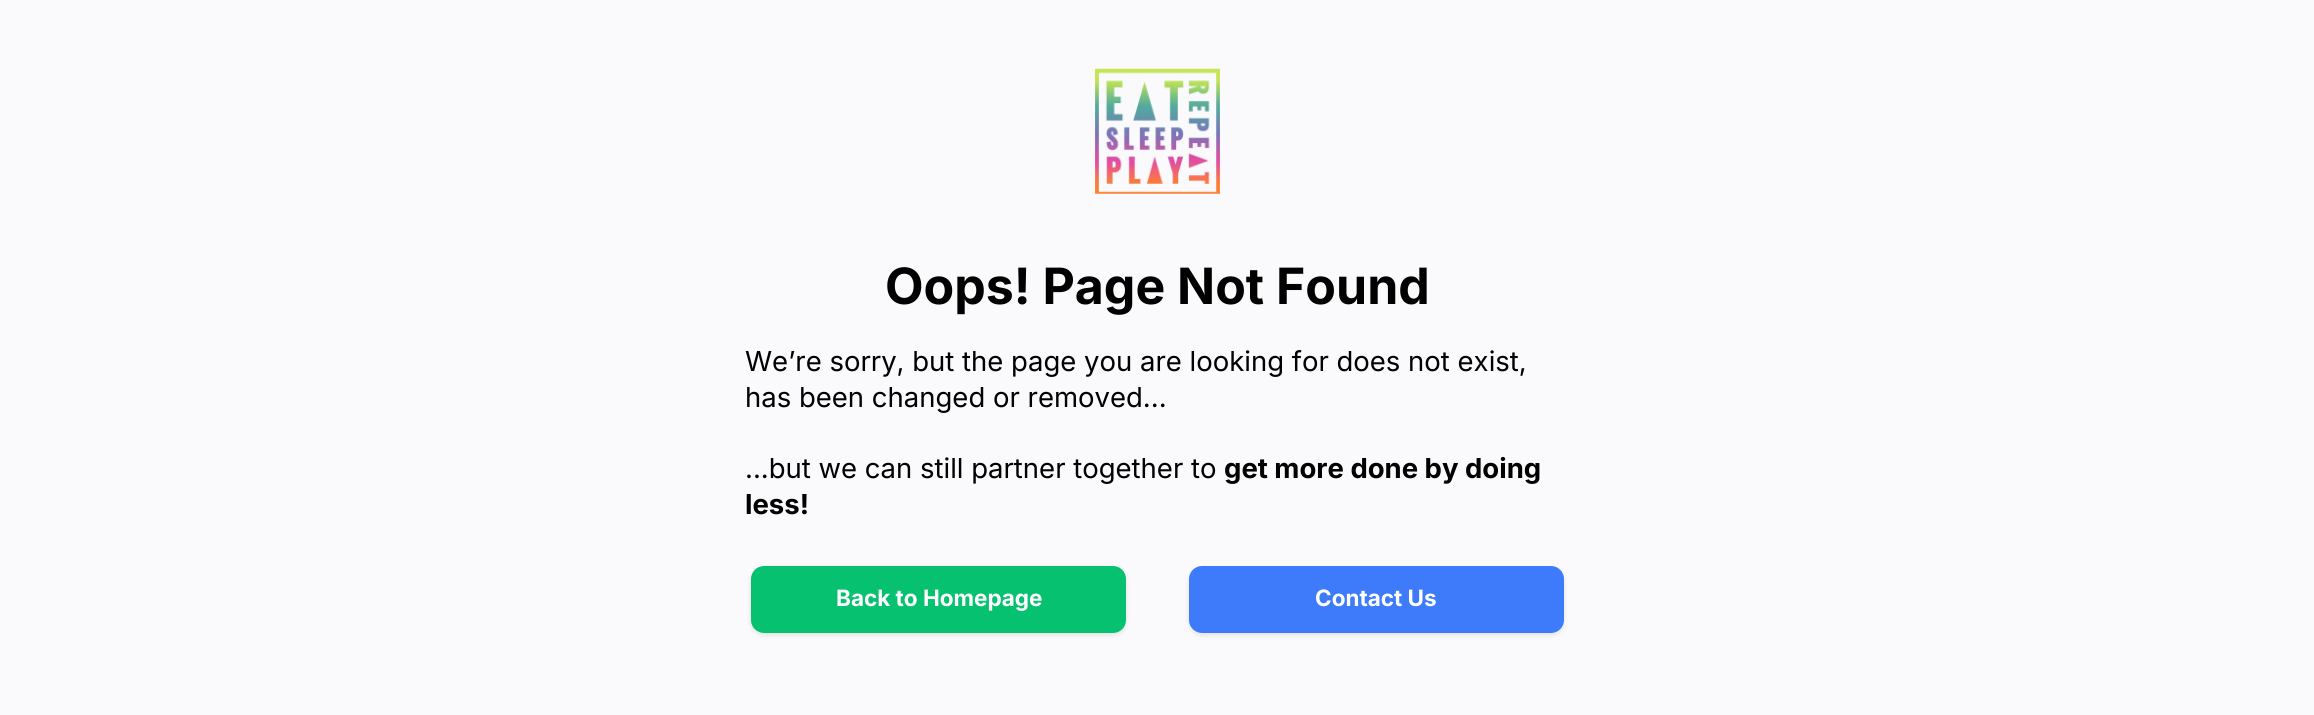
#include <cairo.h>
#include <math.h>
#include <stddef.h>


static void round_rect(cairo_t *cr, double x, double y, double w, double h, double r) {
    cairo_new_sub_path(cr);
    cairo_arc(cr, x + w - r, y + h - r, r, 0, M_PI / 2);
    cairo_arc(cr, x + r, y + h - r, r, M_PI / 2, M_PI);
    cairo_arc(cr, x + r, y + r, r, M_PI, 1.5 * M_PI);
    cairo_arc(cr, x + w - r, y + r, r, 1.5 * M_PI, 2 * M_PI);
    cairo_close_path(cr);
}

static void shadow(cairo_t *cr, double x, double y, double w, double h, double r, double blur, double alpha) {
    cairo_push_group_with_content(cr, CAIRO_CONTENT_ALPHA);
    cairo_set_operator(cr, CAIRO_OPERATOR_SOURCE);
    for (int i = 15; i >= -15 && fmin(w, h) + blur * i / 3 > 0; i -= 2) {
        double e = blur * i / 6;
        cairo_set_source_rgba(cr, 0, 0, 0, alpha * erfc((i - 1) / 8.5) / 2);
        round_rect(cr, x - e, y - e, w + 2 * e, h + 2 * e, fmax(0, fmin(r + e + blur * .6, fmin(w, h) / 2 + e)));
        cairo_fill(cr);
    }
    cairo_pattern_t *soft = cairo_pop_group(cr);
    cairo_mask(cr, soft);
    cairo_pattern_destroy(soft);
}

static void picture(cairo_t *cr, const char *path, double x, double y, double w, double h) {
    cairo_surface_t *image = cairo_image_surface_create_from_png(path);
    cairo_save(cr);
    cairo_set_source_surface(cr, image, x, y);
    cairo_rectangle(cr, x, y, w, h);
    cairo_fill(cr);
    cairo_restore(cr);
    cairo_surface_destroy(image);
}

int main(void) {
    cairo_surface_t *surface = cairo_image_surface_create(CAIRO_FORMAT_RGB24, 2314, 715);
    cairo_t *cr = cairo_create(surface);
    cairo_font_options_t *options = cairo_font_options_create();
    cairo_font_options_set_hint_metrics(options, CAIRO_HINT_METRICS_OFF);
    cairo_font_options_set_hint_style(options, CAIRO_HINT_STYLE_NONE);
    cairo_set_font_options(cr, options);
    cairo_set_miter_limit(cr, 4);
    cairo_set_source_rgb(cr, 0.98, 0.98, 0.988);
    cairo_paint(cr);
    picture(cr, "img1.png", 2209, 223, 3, 2);
    picture(cr, "img2.png", 1095, 68, 125, 126);
    cairo_select_font_face(cr, "Inter", CAIRO_FONT_SLANT_NORMAL, CAIRO_FONT_WEIGHT_BOLD);
    cairo_set_font_size(cr, 50);
    cairo_set_source_rgb(cr, 0, 0, 0);
    cairo_move_to(cr, 885, 304);
    cairo_show_text(cr, "Oops! Page Not Found");
    cairo_select_font_face(cr, "Inter", CAIRO_FONT_SLANT_NORMAL, CAIRO_FONT_WEIGHT_NORMAL);
    cairo_set_font_size(cr, 27.5);
    cairo_move_to(cr, 745, 371);
    cairo_show_text(cr, "We’re sorry, but the page you are looking for does not exist,");
    cairo_move_to(cr, 745, 407);
    cairo_show_text(cr, "has been changed or removed...");
    cairo_move_to(cr, 745, 478);
    cairo_show_text(cr, "...but we can still partner together to");
    cairo_select_font_face(cr, "Inter", CAIRO_FONT_SLANT_NORMAL, CAIRO_FONT_WEIGHT_BOLD);
    cairo_move_to(cr, 1224, 478);
    cairo_show_text(cr, "get more done by doing");
    cairo_move_to(cr, 745, 514);
    cairo_show_text(cr, "less!");
    cairo_set_source_rgb(cr, 0.376, 0.38, 0.439);
    shadow(cr, 751, 569, 375, 66, 13, 2.5, 0.16);
    cairo_set_source_rgb(cr, 0.024, 0.761, 0.439);
    round_rect(cr, 751, 566, 375, 67, 13);
    cairo_fill(cr);
    cairo_set_font_size(cr, 22.5);
    cairo_set_source_rgb(cr, 1, 1, 1);
    cairo_move_to(cr, 836, 606);
    cairo_show_text(cr, "Back to Homepage");
    cairo_set_source_rgb(cr, 0.376, 0.38, 0.439);
    shadow(cr, 1189, 569, 375, 66, 13, 2.5, 0.16);
    cairo_set_source_rgb(cr, 0.243, 0.482, 0.98);
    round_rect(cr, 1189, 566, 375, 67, 13);
    cairo_fill(cr);
    cairo_set_source_rgb(cr, 1, 1, 1);
    cairo_move_to(cr, 1315, 606);
    cairo_show_text(cr, "Contact Us");
    cairo_surface_write_to_png(surface, "page.png");
    cairo_font_options_destroy(options);
    cairo_destroy(cr);
    cairo_surface_destroy(surface);
    return 0;
}
